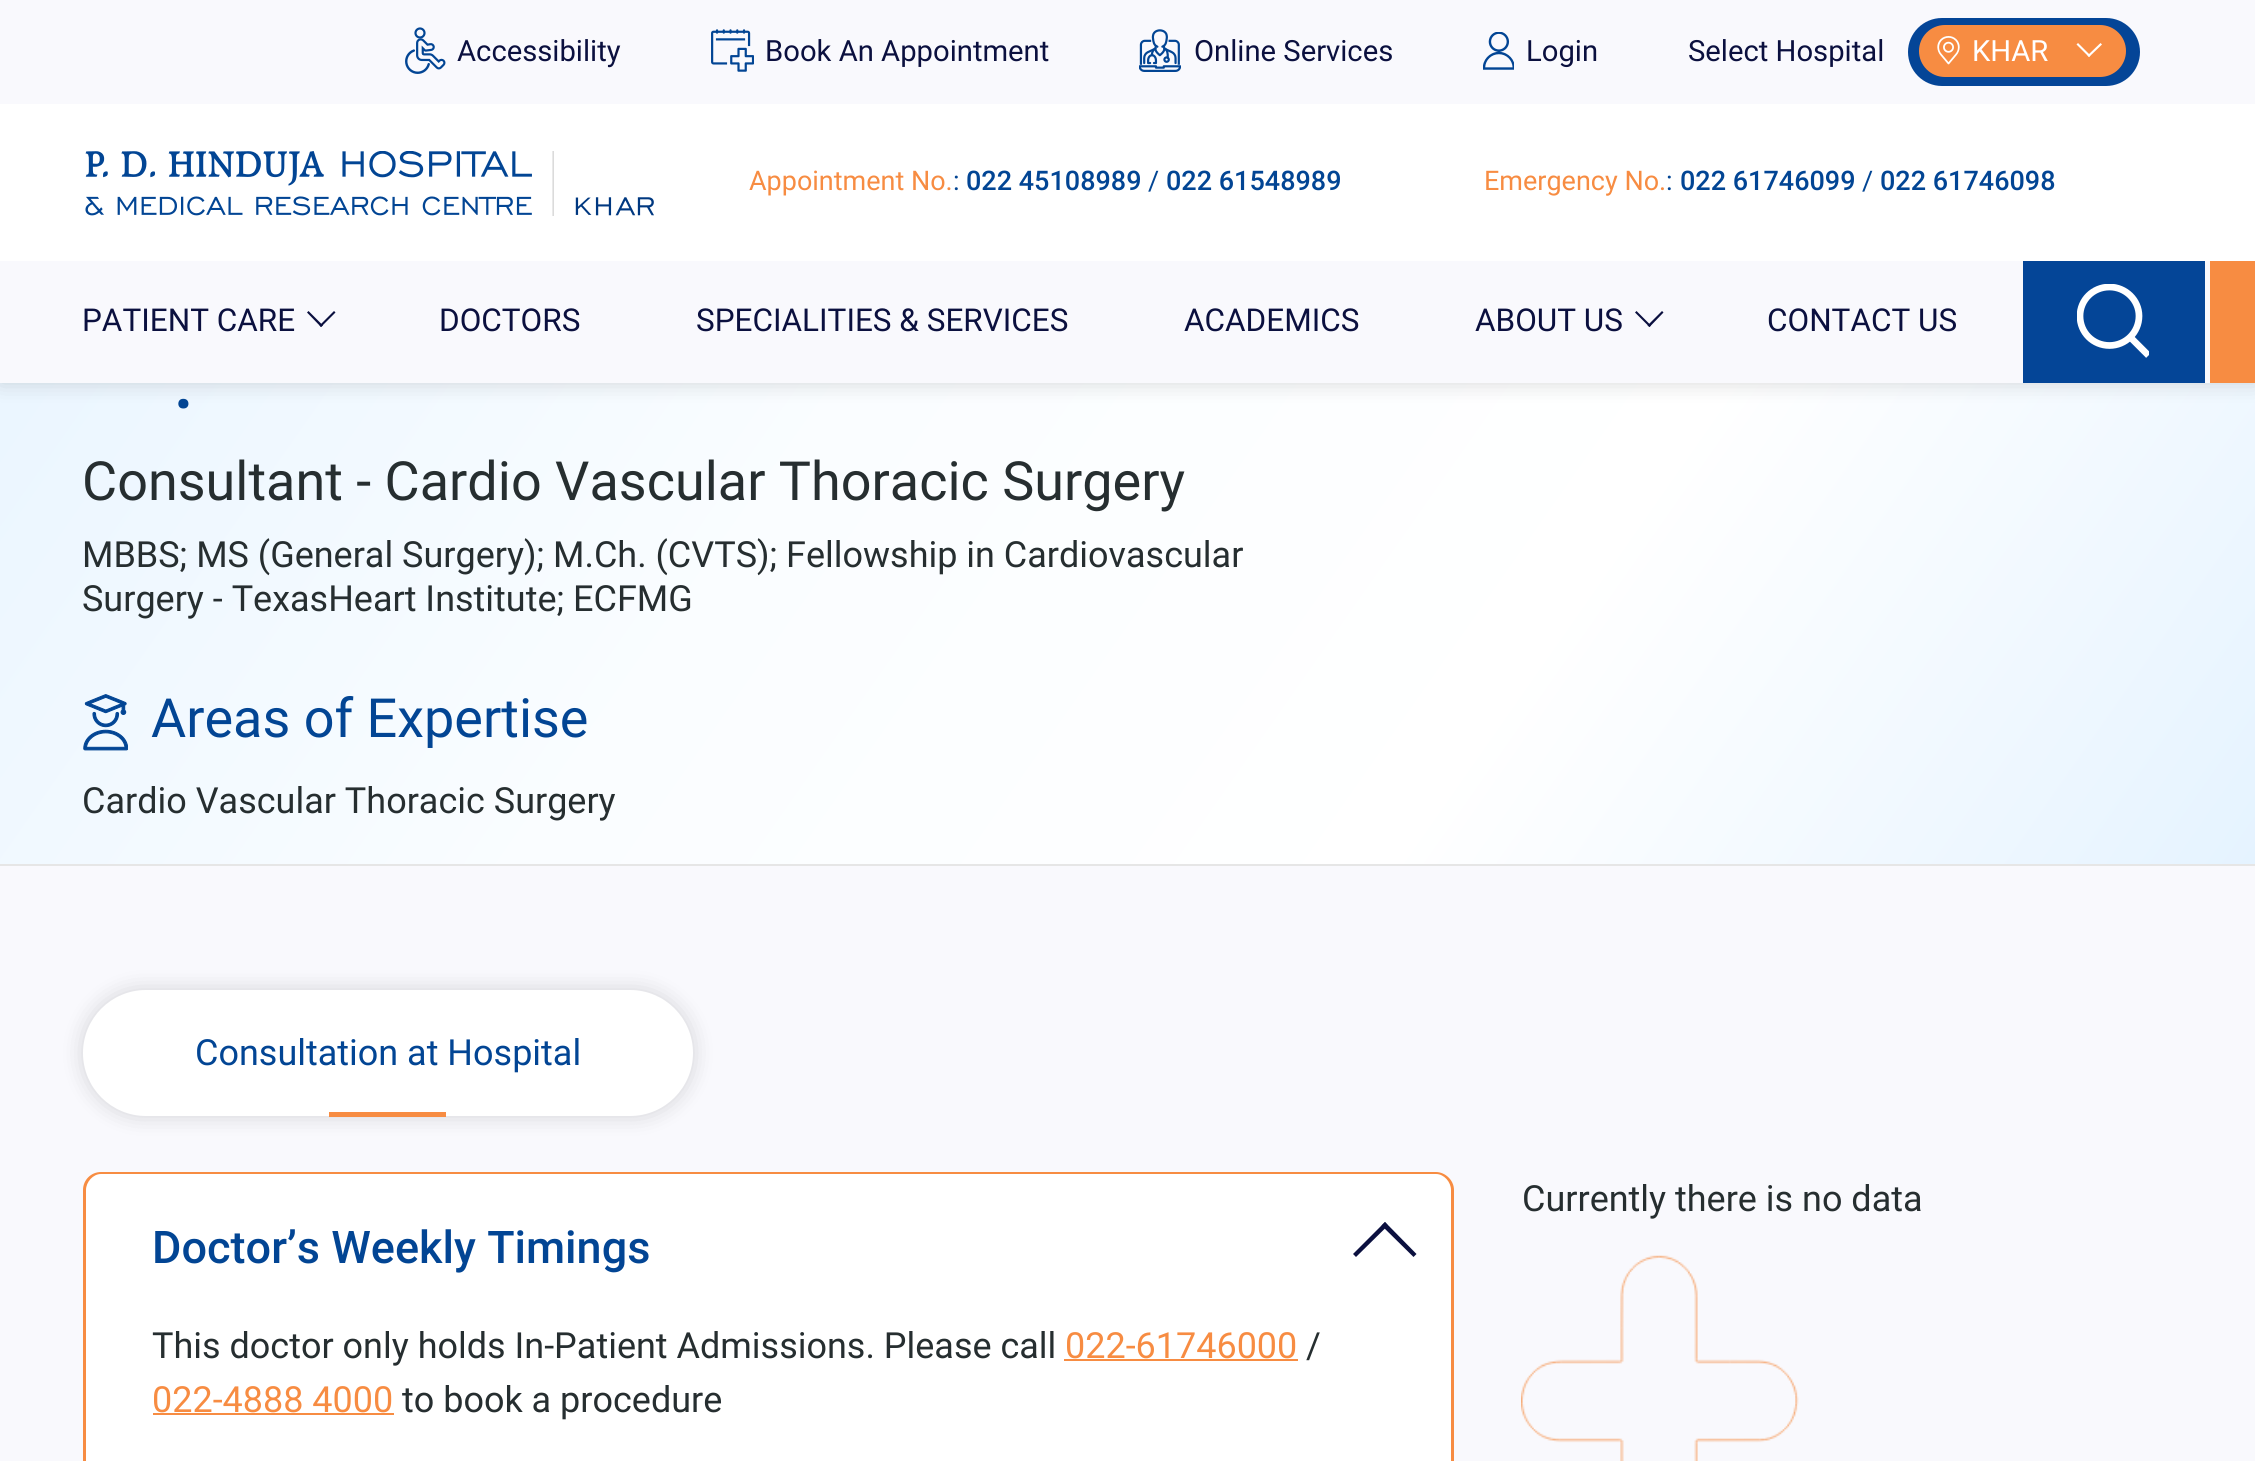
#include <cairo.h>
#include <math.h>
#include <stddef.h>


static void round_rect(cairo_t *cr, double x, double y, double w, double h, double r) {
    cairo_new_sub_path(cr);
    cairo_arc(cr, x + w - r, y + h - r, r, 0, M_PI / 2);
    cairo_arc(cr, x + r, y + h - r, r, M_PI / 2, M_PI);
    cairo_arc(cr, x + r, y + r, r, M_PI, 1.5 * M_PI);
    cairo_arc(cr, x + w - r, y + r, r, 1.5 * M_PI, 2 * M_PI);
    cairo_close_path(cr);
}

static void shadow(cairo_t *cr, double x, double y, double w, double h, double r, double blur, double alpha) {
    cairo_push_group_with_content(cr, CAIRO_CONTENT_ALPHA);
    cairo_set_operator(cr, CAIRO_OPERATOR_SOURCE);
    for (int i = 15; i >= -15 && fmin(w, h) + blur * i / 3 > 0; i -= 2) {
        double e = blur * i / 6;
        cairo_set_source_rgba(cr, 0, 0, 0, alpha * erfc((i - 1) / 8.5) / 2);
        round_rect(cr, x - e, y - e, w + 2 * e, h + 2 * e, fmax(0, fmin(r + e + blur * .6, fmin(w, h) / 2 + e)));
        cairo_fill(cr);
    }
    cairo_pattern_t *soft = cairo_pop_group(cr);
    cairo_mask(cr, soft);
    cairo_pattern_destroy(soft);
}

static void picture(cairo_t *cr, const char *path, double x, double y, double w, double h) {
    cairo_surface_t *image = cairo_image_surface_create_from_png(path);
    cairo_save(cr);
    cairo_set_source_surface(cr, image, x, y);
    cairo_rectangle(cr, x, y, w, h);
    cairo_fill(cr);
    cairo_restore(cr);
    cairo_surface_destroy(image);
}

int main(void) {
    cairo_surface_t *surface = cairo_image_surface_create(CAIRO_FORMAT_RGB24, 2255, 1461);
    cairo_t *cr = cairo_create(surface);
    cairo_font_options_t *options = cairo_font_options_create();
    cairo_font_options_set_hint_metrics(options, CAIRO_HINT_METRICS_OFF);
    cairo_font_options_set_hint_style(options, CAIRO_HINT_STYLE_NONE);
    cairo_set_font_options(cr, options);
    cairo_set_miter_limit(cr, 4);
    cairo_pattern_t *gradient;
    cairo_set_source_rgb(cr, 0.973, 0.976, 0.992);
    cairo_paint(cr);
    gradient = cairo_pattern_create_linear(156, -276, 2101, 1086);
    cairo_pattern_add_color_stop_rgba(gradient, 0, 0.898, 0.953, 1, 1);
    cairo_pattern_add_color_stop_rgba(gradient, 0.4, 0.98, 0.992, 1, 1);
    cairo_pattern_add_color_stop_rgba(gradient, 0.7, 1, 1, 1, 1);
    cairo_pattern_add_color_stop_rgba(gradient, 1, 0.898, 0.953, 1, 1);
    cairo_set_source(cr, gradient);
    cairo_pattern_destroy(gradient);
    cairo_rectangle(cr, 0, 383, 2255, 481);
    cairo_fill(cr);
    cairo_set_source_rgb(cr, 0, 0, 0);
    shadow(cr, 0, 0, 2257, 383, 0, 11, 0.15);
    cairo_set_source_rgb(cr, 1, 1, 1);
    cairo_rectangle(cr, 0, 104, 2255, 157);
    cairo_fill(cr);
    cairo_set_source_rgb(cr, 0.973, 0.976, 0.992);
    cairo_rectangle(cr, 0, 0, 2255, 104);
    cairo_fill(cr);
    picture(cr, "img1.png", 405, 27, 41, 47);
    cairo_select_font_face(cr, "Roboto", CAIRO_FONT_SLANT_NORMAL, CAIRO_FONT_WEIGHT_NORMAL);
    cairo_set_font_size(cr, 29.25);
    cairo_set_source_rgb(cr, 0.043, 0.063, 0.247);
    cairo_move_to(cr, 457, 61);
    cairo_show_text(cr, "Accessibility");
    picture(cr, "img2.png", 711, 29, 43, 43);
    cairo_move_to(cr, 765, 61);
    cairo_show_text(cr, "Book An Appointment");
    picture(cr, "img3.png", 1139, 29, 42, 43);
    cairo_move_to(cr, 1194, 61);
    cairo_show_text(cr, "Online Services");
    picture(cr, "img4.png", 1483, 32, 31, 38);
    cairo_move_to(cr, 1526, 61);
    cairo_show_text(cr, "Login");
    cairo_move_to(cr, 1688, 61);
    cairo_show_text(cr, "Select Hospital");
    cairo_set_source_rgb(cr, 0.016, 0.271, 0.592);
    round_rect(cr, 1908, 18, 232, 68, 34);
    cairo_fill(cr);
    cairo_set_source_rgb(cr, 0.965, 0.549, 0.259);
    round_rect(cr, 1919, 25, 207, 52, 26);
    cairo_fill(cr);
    picture(cr, "img5.png", 1937, 36, 23, 29);
    cairo_set_source_rgb(cr, 1, 1, 1);
    cairo_move_to(cr, 1972, 61);
    cairo_show_text(cr, "KHAR");
    cairo_new_path(cr);
    cairo_move_to(cr, 2102, 44.5);
    cairo_line_to(cr, 2089, 57);
    cairo_line_to(cr, 2087.5, 55.5);
    cairo_line_to(cr, 2100.5, 43);
    cairo_close_path(cr);
    cairo_fill(cr);
    cairo_new_path(cr);
    cairo_move_to(cr, 2090.5, 55.5);
    cairo_line_to(cr, 2089, 57);
    cairo_line_to(cr, 2076.5, 44.5);
    cairo_line_to(cr, 2078, 43);
    cairo_close_path(cr);
    cairo_fill(cr);
    picture(cr, "img6.png", 85, 151, 569, 65);
    cairo_set_font_size(cr, 27);
    cairo_set_source_rgb(cr, 0.965, 0.549, 0.259);
    cairo_move_to(cr, 749, 190);
    cairo_show_text(cr, "Appointment No.");
    cairo_set_source_rgb(cr, 0.008, 0.271, 0.58);
    cairo_move_to(cr, 953, 190);
    cairo_show_text(cr, ":");
    cairo_select_font_face(cr, "Roboto Medium", CAIRO_FONT_SLANT_NORMAL, CAIRO_FONT_WEIGHT_NORMAL);
    cairo_move_to(cr, 966, 190);
    cairo_show_text(cr, "022 45108989");
    cairo_select_font_face(cr, "Roboto", CAIRO_FONT_SLANT_NORMAL, CAIRO_FONT_WEIGHT_NORMAL);
    cairo_move_to(cr, 1148, 190);
    cairo_show_text(cr, "/");
    cairo_select_font_face(cr, "Roboto Medium", CAIRO_FONT_SLANT_NORMAL, CAIRO_FONT_WEIGHT_NORMAL);
    cairo_move_to(cr, 1166, 190);
    cairo_show_text(cr, "022 61548989");
    cairo_select_font_face(cr, "Roboto", CAIRO_FONT_SLANT_NORMAL, CAIRO_FONT_WEIGHT_NORMAL);
    cairo_set_source_rgb(cr, 0.965, 0.549, 0.259);
    cairo_move_to(cr, 1484, 190);
    cairo_show_text(cr, "Emergency No.");
    cairo_set_source_rgb(cr, 0.008, 0.271, 0.58);
    cairo_move_to(cr, 1666, 190);
    cairo_show_text(cr, ":");
    cairo_select_font_face(cr, "Roboto Medium", CAIRO_FONT_SLANT_NORMAL, CAIRO_FONT_WEIGHT_NORMAL);
    cairo_move_to(cr, 1680, 190);
    cairo_show_text(cr, "022 61746099");
    cairo_select_font_face(cr, "Roboto", CAIRO_FONT_SLANT_NORMAL, CAIRO_FONT_WEIGHT_NORMAL);
    cairo_move_to(cr, 1862, 190);
    cairo_show_text(cr, "/");
    cairo_select_font_face(cr, "Roboto Medium", CAIRO_FONT_SLANT_NORMAL, CAIRO_FONT_WEIGHT_NORMAL);
    cairo_move_to(cr, 1880, 190);
    cairo_show_text(cr, "022 61746098");
    cairo_set_source_rgb(cr, 0.973, 0.976, 0.992);
    cairo_rectangle(cr, 0, 261, 2023, 122);
    cairo_fill(cr);
    cairo_select_font_face(cr, "Roboto", CAIRO_FONT_SLANT_NORMAL, CAIRO_FONT_WEIGHT_NORMAL);
    cairo_set_font_size(cr, 31.5);
    cairo_set_source_rgb(cr, 0.043, 0.063, 0.247);
    cairo_move_to(cr, 82, 331);
    cairo_show_text(cr, "PATIENT CARE");
    cairo_new_path(cr);
    cairo_move_to(cr, 319.5, 325.5);
    cairo_line_to(cr, 334, 311);
    cairo_line_to(cr, 335.5, 312.5);
    cairo_line_to(cr, 321, 327);
    cairo_close_path(cr);
    cairo_fill(cr);
    cairo_new_path(cr);
    cairo_move_to(cr, 307, 312.5);
    cairo_line_to(cr, 308.5, 311);
    cairo_line_to(cr, 323, 325.5);
    cairo_line_to(cr, 321, 327);
    cairo_close_path(cr);
    cairo_fill(cr);
    cairo_move_to(cr, 439, 331);
    cairo_show_text(cr, "DOCTORS");
    cairo_move_to(cr, 696, 331);
    cairo_show_text(cr, "SPECIALITIES & SERVICES");
    cairo_move_to(cr, 1184, 331);
    cairo_show_text(cr, "ACADEMICS");
    cairo_move_to(cr, 1475, 331);
    cairo_show_text(cr, "ABOUT US");
    cairo_new_path(cr);
    cairo_move_to(cr, 1647.5, 325.5);
    cairo_line_to(cr, 1662, 311);
    cairo_line_to(cr, 1663.5, 312.5);
    cairo_line_to(cr, 1649.5, 327);
    cairo_close_path(cr);
    cairo_fill(cr);
    cairo_new_path(cr);
    cairo_move_to(cr, 1635, 312.5);
    cairo_line_to(cr, 1636.5, 311);
    cairo_line_to(cr, 1651, 325.5);
    cairo_line_to(cr, 1649.5, 327);
    cairo_close_path(cr);
    cairo_fill(cr);
    cairo_move_to(cr, 1767, 331);
    cairo_show_text(cr, "CONTACT US");
    cairo_set_source_rgb(cr, 0.016, 0.271, 0.592);
    cairo_rectangle(cr, 2023, 261, 182, 122);
    cairo_fill(cr);
    cairo_set_source_rgb(cr, 0.973, 0.976, 0.992);
    cairo_rectangle(cr, 2205, 261, 5, 122);
    cairo_fill(cr);
    cairo_save(cr);
    cairo_rectangle(cr, 2077, 284, 72, 74);
    cairo_clip(cr);
    cairo_new_path(cr);
    cairo_move_to(cr, 2139, 316);
    cairo_curve_to(cr, 2139, 332.5, 2125.5, 345.5, 2109.5, 345.5);
    cairo_curve_to(cr, 2093, 345.5, 2080, 332.5, 2080, 316);
    cairo_curve_to(cr, 2080, 300, 2093, 287, 2109.5, 287);
    cairo_curve_to(cr, 2125.5, 287, 2139, 300, 2139, 316);
    cairo_close_path(cr);
    cairo_set_source_rgb(cr, 1, 1, 1);
    cairo_set_line_width(cr, 6.7);
    cairo_set_line_join(cr, CAIRO_LINE_JOIN_ROUND);
    cairo_stroke(cr);
    cairo_new_path(cr);
    cairo_move_to(cr, 2148.5, 355.5);
    cairo_line_to(cr, 2130, 337);
    cairo_stroke(cr);
    cairo_restore(cr);
    cairo_set_source_rgb(cr, 0.965, 0.549, 0.259);
    cairo_rectangle(cr, 2210, 261, 45, 122);
    cairo_fill(cr);
    cairo_set_source_rgb(cr, 0.902, 0.902, 0.902);
    cairo_rectangle(cr, 0, 864, 2255, 2);
    cairo_fill(cr);
    cairo_set_font_size(cr, 90);
    cairo_set_source_rgb(cr, 0.008, 0.271, 0.58);
    cairo_move_to(cr, 172, 408);
    cairo_show_text(cr, ".");
    cairo_set_font_size(cr, 54);
    cairo_set_source_rgb(cr, 0.149, 0.18, 0.188);
    cairo_move_to(cr, 82, 500);
    cairo_show_text(cr, "Consultant - Cardio Vascular Thoracic Surgery");
    cairo_set_font_size(cr, 36);
    cairo_move_to(cr, 82, 567);
    cairo_show_text(cr, "MBBS; MS (General Surgery); M.Ch. (CVTS); Fellowship in Cardiovascular");
    cairo_move_to(cr, 82, 611);
    cairo_show_text(cr, "Surgery - TexasHeart Institute; ECFMG");
    picture(cr, "img7.png", 83, 694, 45, 57);
    cairo_set_font_size(cr, 54);
    cairo_set_source_rgb(cr, 0.008, 0.271, 0.58);
    cairo_move_to(cr, 151, 737);
    cairo_show_text(cr, "Areas of Expertise");
    cairo_set_font_size(cr, 36);
    cairo_set_source_rgb(cr, 0.149, 0.18, 0.188);
    cairo_move_to(cr, 82, 813);
    cairo_show_text(cr, "Cardio Vascular Thoracic Surgery");
    cairo_set_source_rgb(cr, 0, 0, 0);
    shadow(cr, 83, 990, 610, 126, 63, 11, 0.15);
    cairo_set_source_rgb(cr, 1, 1, 1);
    round_rect(cr, 83, 990, 610, 126, 63);
    cairo_fill(cr);
    cairo_set_source_rgb(cr, 0.008, 0.271, 0.58);
    cairo_move_to(cr, 195, 1065);
    cairo_show_text(cr, "Consultation at Hospital");
    cairo_set_source_rgb(cr, 0.965, 0.549, 0.259);
    cairo_rectangle(cr, 329, 1112, 117, 5);
    cairo_fill(cr);
    picture(cr, "img8.png", 1521, 1255, 278, 206);
    cairo_set_source_rgb(cr, 0.149, 0.18, 0.188);
    cairo_move_to(cr, 1522, 1211);
    cairo_show_text(cr, "Currently there is no data");
    cairo_set_source_rgb(cr, 1, 1, 1);
    cairo_new_path(cr);
    cairo_move_to(cr, 101, 1172);
    cairo_line_to(cr, 1436, 1172);
    cairo_curve_to(cr, 1446, 1172, 1454, 1180, 1454, 1190);
    cairo_line_to(cr, 1454, 1274);
    cairo_line_to(cr, 83, 1274);
    cairo_line_to(cr, 83, 1190);
    cairo_curve_to(cr, 83, 1180, 91, 1172, 101, 1172);
    cairo_close_path(cr);
    cairo_fill(cr);
    cairo_set_source_rgb(cr, 0.965, 0.549, 0.259);
    cairo_set_fill_rule(cr, CAIRO_FILL_RULE_EVEN_ODD);
    cairo_new_path(cr);
    cairo_move_to(cr, 101, 1172);
    cairo_line_to(cr, 1436, 1172);
    cairo_curve_to(cr, 1445, 1172, 1454, 1180, 1454, 1190);
    cairo_line_to(cr, 1454, 1274);
    cairo_line_to(cr, 83, 1274);
    cairo_line_to(cr, 83, 1190);
    cairo_curve_to(cr, 83, 1180, 91, 1172, 101, 1172);
    cairo_close_path(cr);
    cairo_move_to(cr, 101, 1174);
    cairo_line_to(cr, 1436, 1174);
    cairo_curve_to(cr, 1444, 1174, 1451, 1182, 1451, 1190);
    cairo_line_to(cr, 1451, 1274);
    cairo_line_to(cr, 86, 1274);
    cairo_line_to(cr, 86, 1190);
    cairo_curve_to(cr, 86, 1182, 93, 1174, 101, 1174);
    cairo_close_path(cr);
    cairo_fill(cr);
    cairo_select_font_face(cr, "Roboto Medium", CAIRO_FONT_SLANT_NORMAL, CAIRO_FONT_WEIGHT_NORMAL);
    cairo_set_font_size(cr, 45);
    cairo_set_source_rgb(cr, 0.008, 0.271, 0.58);
    cairo_move_to(cr, 152, 1263);
    cairo_show_text(cr, "Doctor’s Weekly Timings");
    cairo_set_source_rgb(cr, 0.043, 0.063, 0.247);
    cairo_set_fill_rule(cr, CAIRO_FILL_RULE_WINDING);
    cairo_new_path(cr);
    cairo_move_to(cr, 1356, 1257);
    cairo_line_to(cr, 1353, 1254);
    cairo_line_to(cr, 1385, 1222);
    cairo_line_to(cr, 1388, 1225.5);
    cairo_close_path(cr);
    cairo_fill(cr);
    cairo_new_path(cr);
    cairo_move_to(cr, 1413.5, 1257);
    cairo_line_to(cr, 1381.5, 1225.5);
    cairo_line_to(cr, 1385, 1222);
    cairo_line_to(cr, 1416.5, 1254);
    cairo_close_path(cr);
    cairo_fill(cr);
    cairo_set_source_rgb(cr, 1, 1, 1);
    cairo_rectangle(cr, 86, 1274, 1365, 187);
    cairo_fill(cr);
    cairo_set_source_rgb(cr, 0.965, 0.549, 0.259);
    cairo_set_fill_rule(cr, CAIRO_FILL_RULE_EVEN_ODD);
    cairo_new_path(cr);
    cairo_move_to(cr, 83, 1274);
    cairo_line_to(cr, 1454, 1274);
    cairo_line_to(cr, 1454, 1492);
    cairo_curve_to(cr, 1454, 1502, 1445, 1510, 1436, 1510);
    cairo_line_to(cr, 101, 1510);
    cairo_curve_to(cr, 91, 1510, 83, 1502, 83, 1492);
    cairo_close_path(cr);
    cairo_move_to(cr, 86, 1274);
    cairo_line_to(cr, 1451, 1274);
    cairo_line_to(cr, 1451, 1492);
    cairo_curve_to(cr, 1451, 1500, 1444, 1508, 1436, 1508);
    cairo_line_to(cr, 101, 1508);
    cairo_curve_to(cr, 93, 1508, 86, 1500, 86, 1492);
    cairo_close_path(cr);
    cairo_fill(cr);
    cairo_select_font_face(cr, "Roboto", CAIRO_FONT_SLANT_NORMAL, CAIRO_FONT_WEIGHT_NORMAL);
    cairo_set_font_size(cr, 36);
    cairo_set_source_rgb(cr, 0.149, 0.18, 0.188);
    cairo_move_to(cr, 152, 1358);
    cairo_show_text(cr, "This doctor only holds In-Patient Admissions. Please call");
    cairo_set_source_rgb(cr, 0.965, 0.549, 0.259);
    cairo_move_to(cr, 1065, 1358);
    cairo_show_text(cr, "022-61746000");
    cairo_rectangle(cr, 1064, 1359, 234, 2);
    cairo_fill(cr);
    cairo_set_source_rgb(cr, 0.149, 0.18, 0.188);
    cairo_move_to(cr, 1306, 1358);
    cairo_show_text(cr, "/");
    cairo_set_source_rgb(cr, 0.965, 0.549, 0.259);
    cairo_move_to(cr, 152, 1412);
    cairo_show_text(cr, "022-4888 4000");
    cairo_rectangle(cr, 153, 1413, 241, 2);
    cairo_fill(cr);
    cairo_set_source_rgb(cr, 0.149, 0.18, 0.188);
    cairo_move_to(cr, 402, 1412);
    cairo_show_text(cr, "to book a procedure");
    cairo_surface_write_to_png(surface, "page.png");
    cairo_font_options_destroy(options);
    cairo_destroy(cr);
    cairo_surface_destroy(surface);
    return 0;
}
